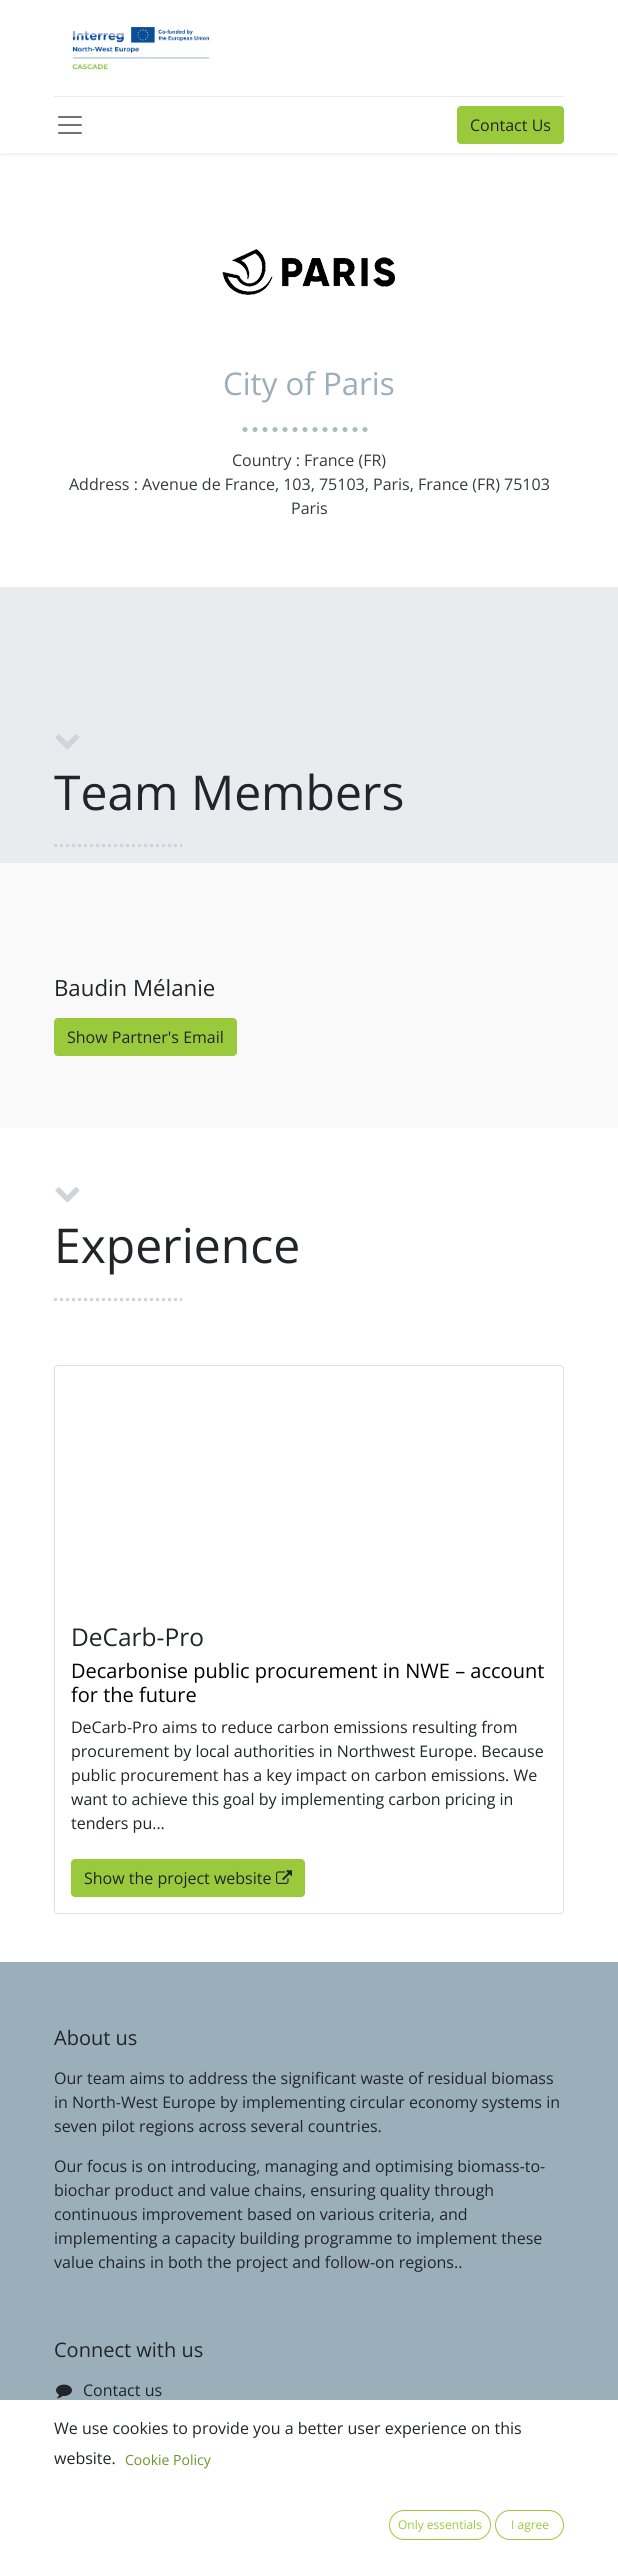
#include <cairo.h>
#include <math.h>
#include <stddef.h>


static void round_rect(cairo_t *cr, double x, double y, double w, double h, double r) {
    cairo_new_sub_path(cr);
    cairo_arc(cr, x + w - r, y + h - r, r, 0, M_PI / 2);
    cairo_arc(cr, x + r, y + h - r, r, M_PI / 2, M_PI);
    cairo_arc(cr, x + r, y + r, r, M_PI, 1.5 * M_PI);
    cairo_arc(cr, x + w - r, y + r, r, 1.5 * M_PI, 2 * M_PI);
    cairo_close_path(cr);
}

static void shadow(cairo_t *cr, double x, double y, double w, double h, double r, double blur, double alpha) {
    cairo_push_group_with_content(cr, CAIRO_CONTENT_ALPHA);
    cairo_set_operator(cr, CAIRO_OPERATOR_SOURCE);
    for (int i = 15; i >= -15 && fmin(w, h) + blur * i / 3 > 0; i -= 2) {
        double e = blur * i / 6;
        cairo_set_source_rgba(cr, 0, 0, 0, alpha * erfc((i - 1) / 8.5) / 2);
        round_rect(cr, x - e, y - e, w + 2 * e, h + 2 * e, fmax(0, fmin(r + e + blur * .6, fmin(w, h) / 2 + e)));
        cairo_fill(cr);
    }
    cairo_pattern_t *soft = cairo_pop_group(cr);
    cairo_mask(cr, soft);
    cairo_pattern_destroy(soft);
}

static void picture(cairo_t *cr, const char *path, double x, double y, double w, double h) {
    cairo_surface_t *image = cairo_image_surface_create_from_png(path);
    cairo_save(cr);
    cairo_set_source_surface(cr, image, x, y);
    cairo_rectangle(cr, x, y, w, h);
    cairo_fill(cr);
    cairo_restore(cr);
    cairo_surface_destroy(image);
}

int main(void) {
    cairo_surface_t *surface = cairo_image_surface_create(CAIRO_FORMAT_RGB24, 618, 2556);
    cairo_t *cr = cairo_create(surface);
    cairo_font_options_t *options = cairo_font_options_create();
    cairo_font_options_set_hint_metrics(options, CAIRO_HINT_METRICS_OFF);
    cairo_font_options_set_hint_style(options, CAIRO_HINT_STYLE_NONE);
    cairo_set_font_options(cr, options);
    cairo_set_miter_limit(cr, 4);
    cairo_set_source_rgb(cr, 1, 1, 1);
    cairo_paint(cr);
    cairo_save(cr);
    cairo_rectangle(cr, 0, 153, 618, 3);
    cairo_clip(cr);
    cairo_set_source_rgb(cr, 0, 0, 0);
    shadow(cr, 0, 2, 618, 153, 0, 2, 0.07);
    cairo_restore(cr);
    picture(cr, "img1.png", 72, 27, 138, 43);
    cairo_set_source_rgb(cr, 0.914, 0.925, 0.937);
    cairo_rectangle(cr, 54, 96, 510, 1);
    cairo_fill(cr);
    picture(cr, "img2.png", 58, 116, 24, 18);
    cairo_set_source_rgb(cr, 0.604, 0.792, 0.235);
    round_rect(cr, 457.5, 106.5, 106, 37, 3.5);
    cairo_fill_preserve(cr);
    cairo_set_line_width(cr, 1);
    cairo_stroke(cr);
    cairo_select_font_face(cr, "Open Sans", CAIRO_FONT_SLANT_NORMAL, CAIRO_FONT_WEIGHT_NORMAL);
    cairo_set_font_size(cr, 16);
    cairo_set_source_rgb(cr, 0.129, 0.145, 0.161);
    cairo_move_to(cr, 470, 131);
    cairo_show_text(cr, "Contact Us");
    picture(cr, "img3.png", 222, 249, 173, 46);
    cairo_set_font_size(cr, 31.25);
    cairo_set_source_rgb(cr, 0.608, 0.686, 0.733);
    cairo_move_to(cr, 223, 395);
    cairo_show_text(cr, "City of Paris");
    cairo_new_path(cr);
    cairo_move_to(cr, 245, 429.5);
    cairo_line_to(cr, 373, 429.5);
    cairo_set_source_rgb(cr, 0.663, 0.737, 0.737);
    cairo_set_line_width(cr, 5);
    cairo_set_line_cap(cr, CAIRO_LINE_CAP_ROUND);
    cairo_set_dash(cr, (double[]){0, 10}, 2, 0);
    cairo_stroke(cr);
    cairo_set_font_size(cr, 16);
    cairo_set_source_rgb(cr, 0.204, 0.227, 0.251);
    cairo_move_to(cr, 232, 466);
    cairo_show_text(cr, "Country : France (FR)");
    cairo_move_to(cr, 69, 490);
    cairo_show_text(cr, "Address : Avenue de France, 103, 75103, Paris, France (FR) 75103");
    cairo_move_to(cr, 291, 514);
    cairo_show_text(cr, "Paris");
    cairo_set_source_rgb(cr, 0.914, 0.925, 0.937);
    cairo_rectangle(cr, 0, 587, 618, 276);
    cairo_fill(cr);
    picture(cr, "img4.png", 55, 734, 25, 16);
    cairo_set_font_size(cr, 48);
    cairo_set_source_rgb(cr, 0.129, 0.145, 0.161);
    cairo_move_to(cr, 54, 810);
    cairo_show_text(cr, "Team Members");
    cairo_new_path(cr);
    cairo_move_to(cr, 54, 845.5);
    cairo_line_to(cr, 182, 845.5);
    cairo_set_source_rgb(cr, 0.808, 0.831, 0.855);
    cairo_set_line_width(cr, 3);
    cairo_set_line_cap(cr, CAIRO_LINE_CAP_BUTT);
    cairo_set_dash(cr, (double[]){3, 3}, 2, 0);
    cairo_stroke(cr);
    cairo_set_source_rgb(cr, 0.973, 0.976, 0.98);
    cairo_rectangle(cr, 0, 863, 618, 265);
    cairo_fill(cr);
    cairo_set_font_size(cr, 22.25);
    cairo_set_source_rgb(cr, 0.129, 0.145, 0.161);
    cairo_move_to(cr, 54, 996);
    cairo_show_text(cr, "Baudin Mélanie");
    cairo_set_source_rgb(cr, 0.604, 0.792, 0.235);
    round_rect(cr, 54.5, 1018.5, 182, 37, 3.5);
    cairo_fill_preserve(cr);
    cairo_set_line_width(cr, 1);
    cairo_set_dash(cr, NULL, 0, 0);
    cairo_stroke(cr);
    cairo_set_font_size(cr, 16);
    cairo_set_source_rgb(cr, 0.129, 0.145, 0.161);
    cairo_move_to(cr, 67, 1043);
    cairo_show_text(cr, "Show Partner's Email");
    picture(cr, "img5.png", 55, 1187, 25, 16);
    cairo_set_font_size(cr, 48);
    cairo_move_to(cr, 54, 1263);
    cairo_show_text(cr, "Experience");
    cairo_new_path(cr);
    cairo_move_to(cr, 54, 1299.5);
    cairo_line_to(cr, 182, 1299.5);
    cairo_set_source_rgb(cr, 0.808, 0.831, 0.855);
    cairo_set_line_width(cr, 3);
    cairo_set_dash(cr, (double[]){3, 3}, 2, 0);
    cairo_stroke(cr);
    round_rect(cr, 54.5, 1365.5, 509, 548, 3.5);
    cairo_set_source_rgb(cr, 0.875, 0.875, 0.875);
    cairo_set_line_width(cr, 1);
    cairo_set_dash(cr, NULL, 0, 0);
    cairo_stroke(cr);
    cairo_set_font_size(cr, 24.5);
    cairo_set_source_rgb(cr, 0.129, 0.145, 0.161);
    cairo_move_to(cr, 71, 1646);
    cairo_show_text(cr, "DeCarb-Pro");
    cairo_set_font_size(cr, 20);
    cairo_set_source_rgb(cr, 0, 0, 0);
    cairo_move_to(cr, 71, 1678);
    cairo_show_text(cr, "Decarbonise public procurement in NWE – account");
    cairo_move_to(cr, 71, 1702);
    cairo_show_text(cr, "for the future");
    cairo_set_font_size(cr, 16);
    cairo_set_source_rgb(cr, 0.129, 0.145, 0.161);
    cairo_move_to(cr, 71, 1733);
    cairo_show_text(cr, "DeCarb-Pro aims to reduce carbon emissions resulting from");
    cairo_move_to(cr, 71, 1757);
    cairo_show_text(cr, "procurement by local authorities in Northwest Europe. Because");
    cairo_move_to(cr, 71, 1781);
    cairo_show_text(cr, "public procurement has a key impact on carbon emissions. We");
    cairo_move_to(cr, 71, 1805);
    cairo_show_text(cr, "want to achieve this goal by implementing carbon pricing in");
    cairo_move_to(cr, 71, 1829);
    cairo_show_text(cr, "tenders pu...");
    cairo_set_source_rgb(cr, 0.604, 0.792, 0.235);
    round_rect(cr, 71.5, 1859.5, 233, 37, 3.5);
    cairo_fill_preserve(cr);
    cairo_stroke(cr);
    cairo_set_source_rgb(cr, 0.129, 0.145, 0.161);
    cairo_move_to(cr, 84, 1884);
    cairo_show_text(cr, "Show the project website");
    picture(cr, "img6.png", 276, 1870, 16, 14);
    cairo_set_source_rgb(cr, 0.608, 0.686, 0.733);
    cairo_rectangle(cr, 0, 1962, 618, 438);
    cairo_fill(cr);
    cairo_set_font_size(cr, 20);
    cairo_set_source_rgb(cr, 0.129, 0.145, 0.161);
    cairo_move_to(cr, 54, 2045);
    cairo_show_text(cr, "About us");
    cairo_set_font_size(cr, 16);
    cairo_move_to(cr, 54, 2084);
    cairo_show_text(cr, "Our team aims to address the significant waste of residual biomass");
    cairo_move_to(cr, 54, 2108);
    cairo_show_text(cr, "in North-West Europe by implementing circular economy systems in");
    cairo_move_to(cr, 54, 2132);
    cairo_show_text(cr, "seven pilot regions across several countries.");
    cairo_move_to(cr, 54, 2172);
    cairo_show_text(cr, "Our focus is on introducing, managing and optimising biomass-to-");
    cairo_move_to(cr, 54, 2196);
    cairo_show_text(cr, "biochar product and value chains, ensuring quality through");
    cairo_move_to(cr, 54, 2220);
    cairo_show_text(cr, "continuous improvement based on various criteria, and");
    cairo_move_to(cr, 54, 2244);
    cairo_show_text(cr, "implementing a capacity building programme to implement these");
    cairo_move_to(cr, 54, 2268);
    cairo_show_text(cr, "value chains in both the project and follow-on regions..");
    cairo_set_font_size(cr, 20);
    cairo_move_to(cr, 54, 2357);
    cairo_show_text(cr, "Connect with us");
    picture(cr, "img7.png", 56, 2384, 16, 15);
    cairo_set_font_size(cr, 16);
    cairo_move_to(cr, 83, 2396);
    cairo_show_text(cr, "Contact us");
    cairo_move_to(cr, 54, 2434);
    cairo_show_text(cr, "We use cookies to provide you a better user experience on this");
    cairo_move_to(cr, 54, 2464);
    cairo_show_text(cr, "website.");
    cairo_set_font_size(cr, 14);
    cairo_set_source_rgb(cr, 0.431, 0.573, 0.157);
    cairo_move_to(cr, 125, 2465);
    cairo_show_text(cr, "Cookie Policy");
    round_rect(cr, 389.5, 2510.5, 101, 29, 14.5);
    cairo_set_source_rgb(cr, 0.604, 0.792, 0.235);
    cairo_stroke(cr);
    cairo_set_font_size(cr, 12);
    cairo_move_to(cr, 398, 2529);
    cairo_show_text(cr, "Only essentials");
    round_rect(cr, 495.5, 2510.5, 68, 29, 14.5);
    cairo_stroke(cr);
    cairo_move_to(cr, 511, 2529);
    cairo_show_text(cr, "I agree");
    cairo_surface_write_to_png(surface, "page.png");
    cairo_font_options_destroy(options);
    cairo_destroy(cr);
    cairo_surface_destroy(surface);
    return 0;
}
